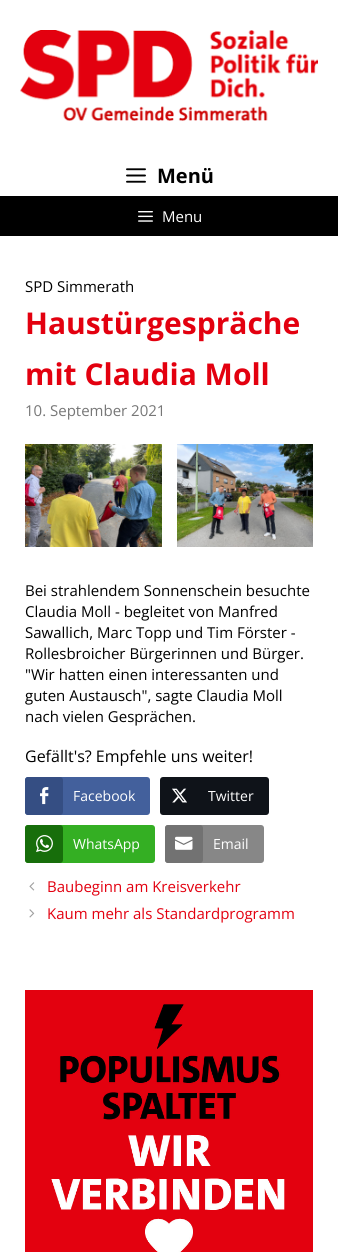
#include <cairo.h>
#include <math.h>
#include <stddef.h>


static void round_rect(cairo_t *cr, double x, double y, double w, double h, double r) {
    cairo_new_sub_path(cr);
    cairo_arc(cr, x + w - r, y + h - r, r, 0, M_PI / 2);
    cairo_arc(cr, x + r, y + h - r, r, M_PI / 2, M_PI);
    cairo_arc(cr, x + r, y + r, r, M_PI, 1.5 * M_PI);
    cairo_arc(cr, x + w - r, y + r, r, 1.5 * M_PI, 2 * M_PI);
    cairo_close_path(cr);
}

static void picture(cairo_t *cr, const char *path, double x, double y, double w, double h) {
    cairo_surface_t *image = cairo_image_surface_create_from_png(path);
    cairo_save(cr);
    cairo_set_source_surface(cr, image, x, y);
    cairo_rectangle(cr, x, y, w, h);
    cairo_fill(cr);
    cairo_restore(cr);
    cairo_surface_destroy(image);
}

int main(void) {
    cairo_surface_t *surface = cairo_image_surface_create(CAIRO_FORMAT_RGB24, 338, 1252);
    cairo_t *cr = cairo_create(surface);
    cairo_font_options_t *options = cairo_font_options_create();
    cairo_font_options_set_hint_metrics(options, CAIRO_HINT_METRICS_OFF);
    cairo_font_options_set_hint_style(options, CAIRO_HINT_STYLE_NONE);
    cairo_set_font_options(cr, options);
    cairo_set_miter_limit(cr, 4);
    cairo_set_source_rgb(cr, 1, 1, 1);
    cairo_paint(cr);
    picture(cr, "img1.png", 20, 30, 298, 91);
    picture(cr, "img2.png", 126, 168, 20, 15);
    cairo_select_font_face(cr, "Open Sans", CAIRO_FONT_SLANT_NORMAL, CAIRO_FONT_WEIGHT_BOLD);
    cairo_set_font_size(cr, 20);
    cairo_set_source_rgb(cr, 0, 0, 0);
    cairo_move_to(cr, 157, 183);
    cairo_show_text(cr, "Menü");
    cairo_rectangle(cr, 0, 196, 338, 40);
    cairo_fill(cr);
    picture(cr, "img3.png", 138, 211, 15, 11);
    cairo_select_font_face(cr, "Open Sans", CAIRO_FONT_SLANT_NORMAL, CAIRO_FONT_WEIGHT_NORMAL);
    cairo_set_font_size(cr, 15);
    cairo_set_source_rgb(cr, 1, 1, 1);
    cairo_move_to(cr, 162, 222);
    cairo_show_text(cr, "Menu");
    cairo_set_source_rgb(cr, 0, 0, 0);
    cairo_move_to(cr, 25, 292);
    cairo_show_text(cr, "SPD Simmerath");
    cairo_select_font_face(cr, "Open Sans", CAIRO_FONT_SLANT_NORMAL, CAIRO_FONT_WEIGHT_BOLD);
    cairo_set_font_size(cr, 30);
    cairo_set_source_rgb(cr, 0.89, 0, 0.059);
    cairo_move_to(cr, 25, 334);
    cairo_show_text(cr, "Haustürgespräche");
    cairo_move_to(cr, 25, 385);
    cairo_show_text(cr, "mit Claudia Moll");
    cairo_select_font_face(cr, "Open Sans", CAIRO_FONT_SLANT_NORMAL, CAIRO_FONT_WEIGHT_NORMAL);
    cairo_set_font_size(cr, 15);
    cairo_set_source_rgb(cr, 0.467, 0.467, 0.467);
    cairo_move_to(cr, 25, 416);
    cairo_show_text(cr, "10. September 2021");
    picture(cr, "img4.png", 25, 444, 137, 103);
    picture(cr, "img5.png", 177, 444, 136, 103);
    cairo_set_source_rgb(cr, 0, 0, 0);
    cairo_move_to(cr, 25, 596);
    cairo_show_text(cr, "Bei strahlendem Sonnenschein besuchte");
    cairo_move_to(cr, 25, 617);
    cairo_show_text(cr, "Claudia Moll - begleitet von Manfred");
    cairo_move_to(cr, 25, 638);
    cairo_show_text(cr, "Sawallich, Marc Topp und Tim Förster -");
    cairo_move_to(cr, 25, 659);
    cairo_show_text(cr, "Rollesbroicher Bürgerinnen und Bürger.");
    cairo_move_to(cr, 25, 680);
    cairo_show_text(cr, "\"Wir hatten einen interessanten und");
    cairo_move_to(cr, 25, 701);
    cairo_show_text(cr, "guten Austausch\", sagte Claudia Moll");
    cairo_move_to(cr, 25, 722);
    cairo_show_text(cr, "nach vielen Gesprächen.");
    cairo_set_font_size(cr, 16);
    cairo_move_to(cr, 25, 762);
    cairo_show_text(cr, "Gefällt's? Empfehle uns weiter!");
    cairo_set_source_rgb(cr, 0.263, 0.376, 0.612);
    round_rect(cr, 25, 777, 125, 38, 3);
    cairo_fill(cr);
    cairo_set_source_rgb(cr, 0.208, 0.306, 0.514);
    round_rect(cr, 25, 777, 38, 38, 3);
    cairo_fill(cr);
    picture(cr, "img6.png", 40, 787, 9, 18);
    cairo_set_font_size(cr, 14);
    cairo_set_source_rgb(cr, 1, 1, 1);
    cairo_move_to(cr, 73, 801);
    cairo_show_text(cr, "Facebook");
    cairo_set_source_rgb(cr, 0.059, 0.078, 0.098);
    round_rect(cr, 160, 777, 109, 38, 3);
    cairo_fill(cr);
    picture(cr, "img7.png", 172, 788, 15, 15);
    cairo_set_source_rgb(cr, 1, 1, 1);
    cairo_move_to(cr, 208, 801);
    cairo_show_text(cr, "Twitter");
    cairo_set_source_rgb(cr, 0.204, 0.686, 0.137);
    round_rect(cr, 25, 825, 130, 38, 3);
    cairo_fill(cr);
    cairo_set_source_rgb(cr, 0.09, 0.431, 0.043);
    round_rect(cr, 25, 825, 38, 38, 3);
    cairo_fill(cr);
    picture(cr, "img8.png", 36, 835, 17, 17);
    cairo_set_source_rgb(cr, 1, 1, 1);
    cairo_move_to(cr, 73, 849);
    cairo_show_text(cr, "WhatsApp");
    cairo_set_source_rgb(cr, 0.529, 0.529, 0.529);
    round_rect(cr, 165, 825, 99, 38, 3);
    cairo_fill(cr);
    cairo_set_source_rgb(cr, 0.447, 0.447, 0.447);
    round_rect(cr, 165, 825, 38, 38, 3);
    cairo_fill(cr);
    picture(cr, "img9.png", 175, 836, 18, 14);
    cairo_set_source_rgb(cr, 1, 1, 1);
    cairo_move_to(cr, 213, 849);
    cairo_show_text(cr, "Email");
    picture(cr, "img10.png", 29, 882, 6, 9);
    cairo_set_font_size(cr, 15);
    cairo_set_source_rgb(cr, 0.89, 0, 0.059);
    cairo_move_to(cr, 47, 892);
    cairo_show_text(cr, "Baubeginn am Kreisverkehr");
    picture(cr, "img11.png", 29, 909, 6, 9);
    cairo_move_to(cr, 47, 919);
    cairo_show_text(cr, "Kaum mehr als Standardprogramm");
    picture(cr, "img12.png", 25, 990, 288, 262);
    cairo_surface_write_to_png(surface, "page.png");
    cairo_font_options_destroy(options);
    cairo_destroy(cr);
    cairo_surface_destroy(surface);
    return 0;
}
